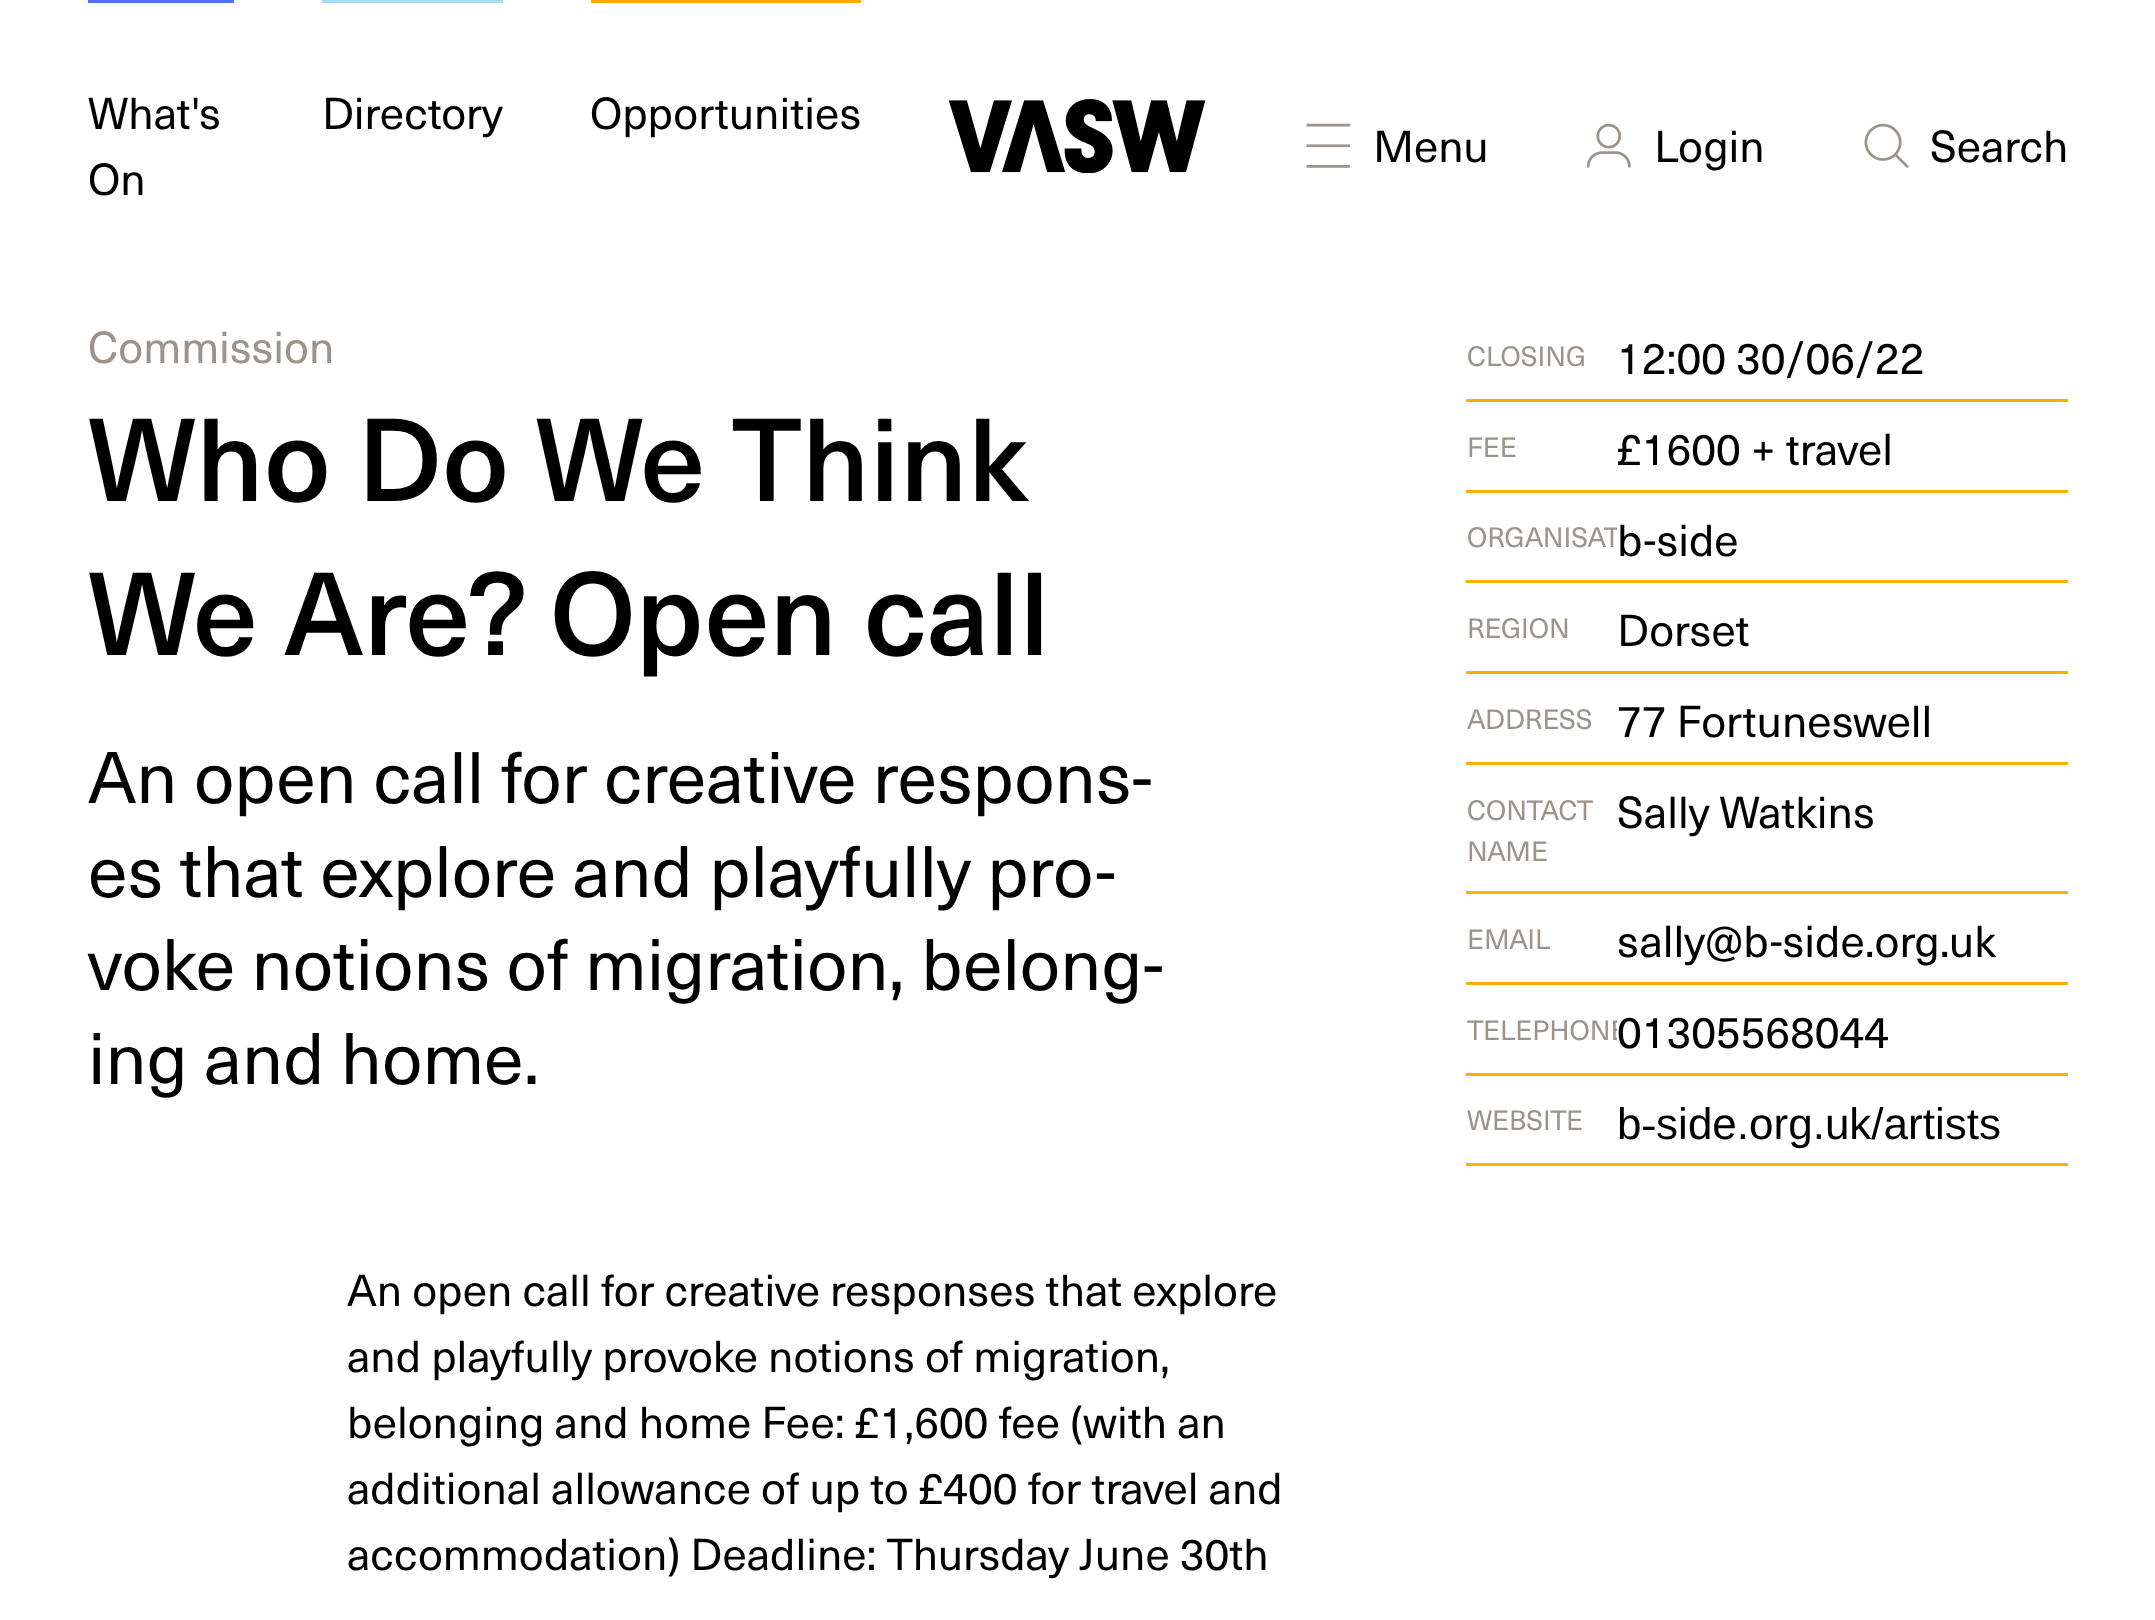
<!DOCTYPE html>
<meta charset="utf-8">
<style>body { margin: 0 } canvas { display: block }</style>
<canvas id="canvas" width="2155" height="1620"></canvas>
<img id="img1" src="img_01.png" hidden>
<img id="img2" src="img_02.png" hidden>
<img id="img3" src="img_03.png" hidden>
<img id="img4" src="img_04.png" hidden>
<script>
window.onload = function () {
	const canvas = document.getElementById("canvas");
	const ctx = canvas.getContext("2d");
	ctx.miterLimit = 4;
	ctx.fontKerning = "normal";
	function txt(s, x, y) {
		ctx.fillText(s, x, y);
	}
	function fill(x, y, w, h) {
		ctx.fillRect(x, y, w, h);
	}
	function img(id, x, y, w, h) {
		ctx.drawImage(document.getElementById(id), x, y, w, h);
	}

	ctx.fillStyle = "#FFFFFF";
	fill(0, 0, 2155, 1620);
	ctx.fillStyle = "#4F70FF";
	fill(88, 0, 146, 3);
	ctx.fillStyle = "#A0E1F1";
	fill(322, 0, 181, 3);
	ctx.fillStyle = "#FFAE00";
	fill(591, 0, 270, 3);
	img("img1", 949, 99, 257, 74);
	img("img2", 1306, 123, 45, 45);
	img("img3", 1586, 123, 45, 45);
	img("img4", 1864, 123, 45, 45);
	fill(1466, 399, 602, 3);
	fill(1466, 490, 602, 3);
	fill(1466, 580, 602, 3);
	fill(1466, 671, 602, 3);
	fill(1466, 762, 602, 3);
	fill(1466, 891, 602, 3);
	fill(1466, 982, 602, 3);
	fill(1466, 1073, 602, 3);
	fill(1466, 1163, 602, 3);
	ctx.font = "44px 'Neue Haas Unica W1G'";
	ctx.fillStyle = "#000000";
	txt("What's", 88, 129);
	txt("On", 88, 195);
	txt("Directory", 322, 129);
	txt("Opportunities", 590, 129);
	txt("Menu", 1373, 162);
	txt("Login", 1654, 162);
	txt("Search", 1930, 162);
	ctx.fillStyle = "#9C938B";
	txt("Commission", 88, 363);
	ctx.font = "500 115.5px 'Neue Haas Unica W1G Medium'";
	ctx.fillStyle = "#000000";
	txt("Who Do We Think", 88, 501);
	txt("We Are? Open call", 88, 655);
	ctx.font = "71.5px 'Neue Haas Unica W1G'";
	txt("An open call for creative respons-", 88, 803);
	txt("es that explore and playfully pro-", 88, 897);
	txt("voke notions of migration, belong-", 88, 990);
	txt("ing and home.", 88, 1084);
	ctx.font = "27.5px 'Neue Haas Unica W1G'";
	ctx.fillStyle = "#9C938B";
	txt("CLOSING", 1467, 366);
	ctx.font = "44px 'Neue Haas Unica W1G'";
	ctx.fillStyle = "#000000";
	txt("12:00 30/06/22", 1617, 374);
	ctx.font = "27.5px 'Neue Haas Unica W1G'";
	ctx.fillStyle = "#9C938B";
	txt("FEE", 1467, 457);
	ctx.font = "44px 'Neue Haas Unica W1G'";
	ctx.fillStyle = "#000000";
	txt("£1600 + travel", 1617, 465);
	ctx.save();
	ctx.beginPath();
	ctx.rect(1466, 514, 151, 44);
	ctx.clip();
	ctx.font = "27.5px 'Neue Haas Unica W1G'";
	ctx.fillStyle = "#9C938B";
	txt("ORGANISAT", 1467, 547);
	ctx.restore();
	txt("b-side", 1617, 556);
	ctx.font = "27.5px 'Neue Haas Unica W1G'";
	ctx.fillStyle = "#9C938B";
	txt("REGION", 1467, 638);
	ctx.font = "44px 'Neue Haas Unica W1G'";
	ctx.fillStyle = "#000000";
	txt("Dorset", 1617, 646);
	ctx.font = "27.5px 'Neue Haas Unica W1G'";
	ctx.fillStyle = "#9C938B";
	txt("ADDRESS", 1467, 729);
	ctx.font = "44px 'Neue Haas Unica W1G'";
	ctx.fillStyle = "#000000";
	txt("77 Fortuneswell", 1617, 737);
	ctx.font = "27.5px 'Neue Haas Unica W1G'";
	ctx.fillStyle = "#9C938B";
	txt("CONTACT", 1467, 820);
	txt("NAME", 1467, 861);
	ctx.font = "44px 'Neue Haas Unica W1G'";
	ctx.fillStyle = "#000000";
	txt("Sally Watkins", 1617, 828);
	ctx.font = "27.5px 'Neue Haas Unica W1G'";
	ctx.fillStyle = "#9C938B";
	txt("EMAIL", 1467, 949);
	ctx.font = "44px 'Neue Haas Unica W1G'";
	ctx.fillStyle = "#000000";
	txt("sally@b-side.org.uk", 1617, 957);
	ctx.save();
	ctx.beginPath();
	ctx.rect(1466, 1007, 151, 44);
	ctx.clip();
	ctx.font = "27.5px 'Neue Haas Unica W1G'";
	ctx.fillStyle = "#9C938B";
	txt("TELEPHONE", 1467, 1040);
	ctx.restore();
	txt("01305568044", 1617, 1048);
	ctx.font = "27.5px 'Neue Haas Unica W1G'";
	ctx.fillStyle = "#9C938B";
	txt("WEBSITE", 1467, 1130);
	ctx.font = "44px Liberation Sans";
	ctx.fillStyle = "#000000";
	txt("b‑side.org.uk/artists", 1617, 1139);
	ctx.font = "44px 'Neue Haas Unica W1G'";
	txt("An open call for creative responses that explore", 347, 1306);
	txt("and playfully provoke notions of migration,", 347, 1372);
	txt("belonging and home Fee: £1,600 fee (with an", 347, 1438);
	txt("additional allowance of up to £400 for travel and", 347, 1504);
	txt("accommodation) Deadline: Thursday June 30th", 347, 1570);
};
</script>
